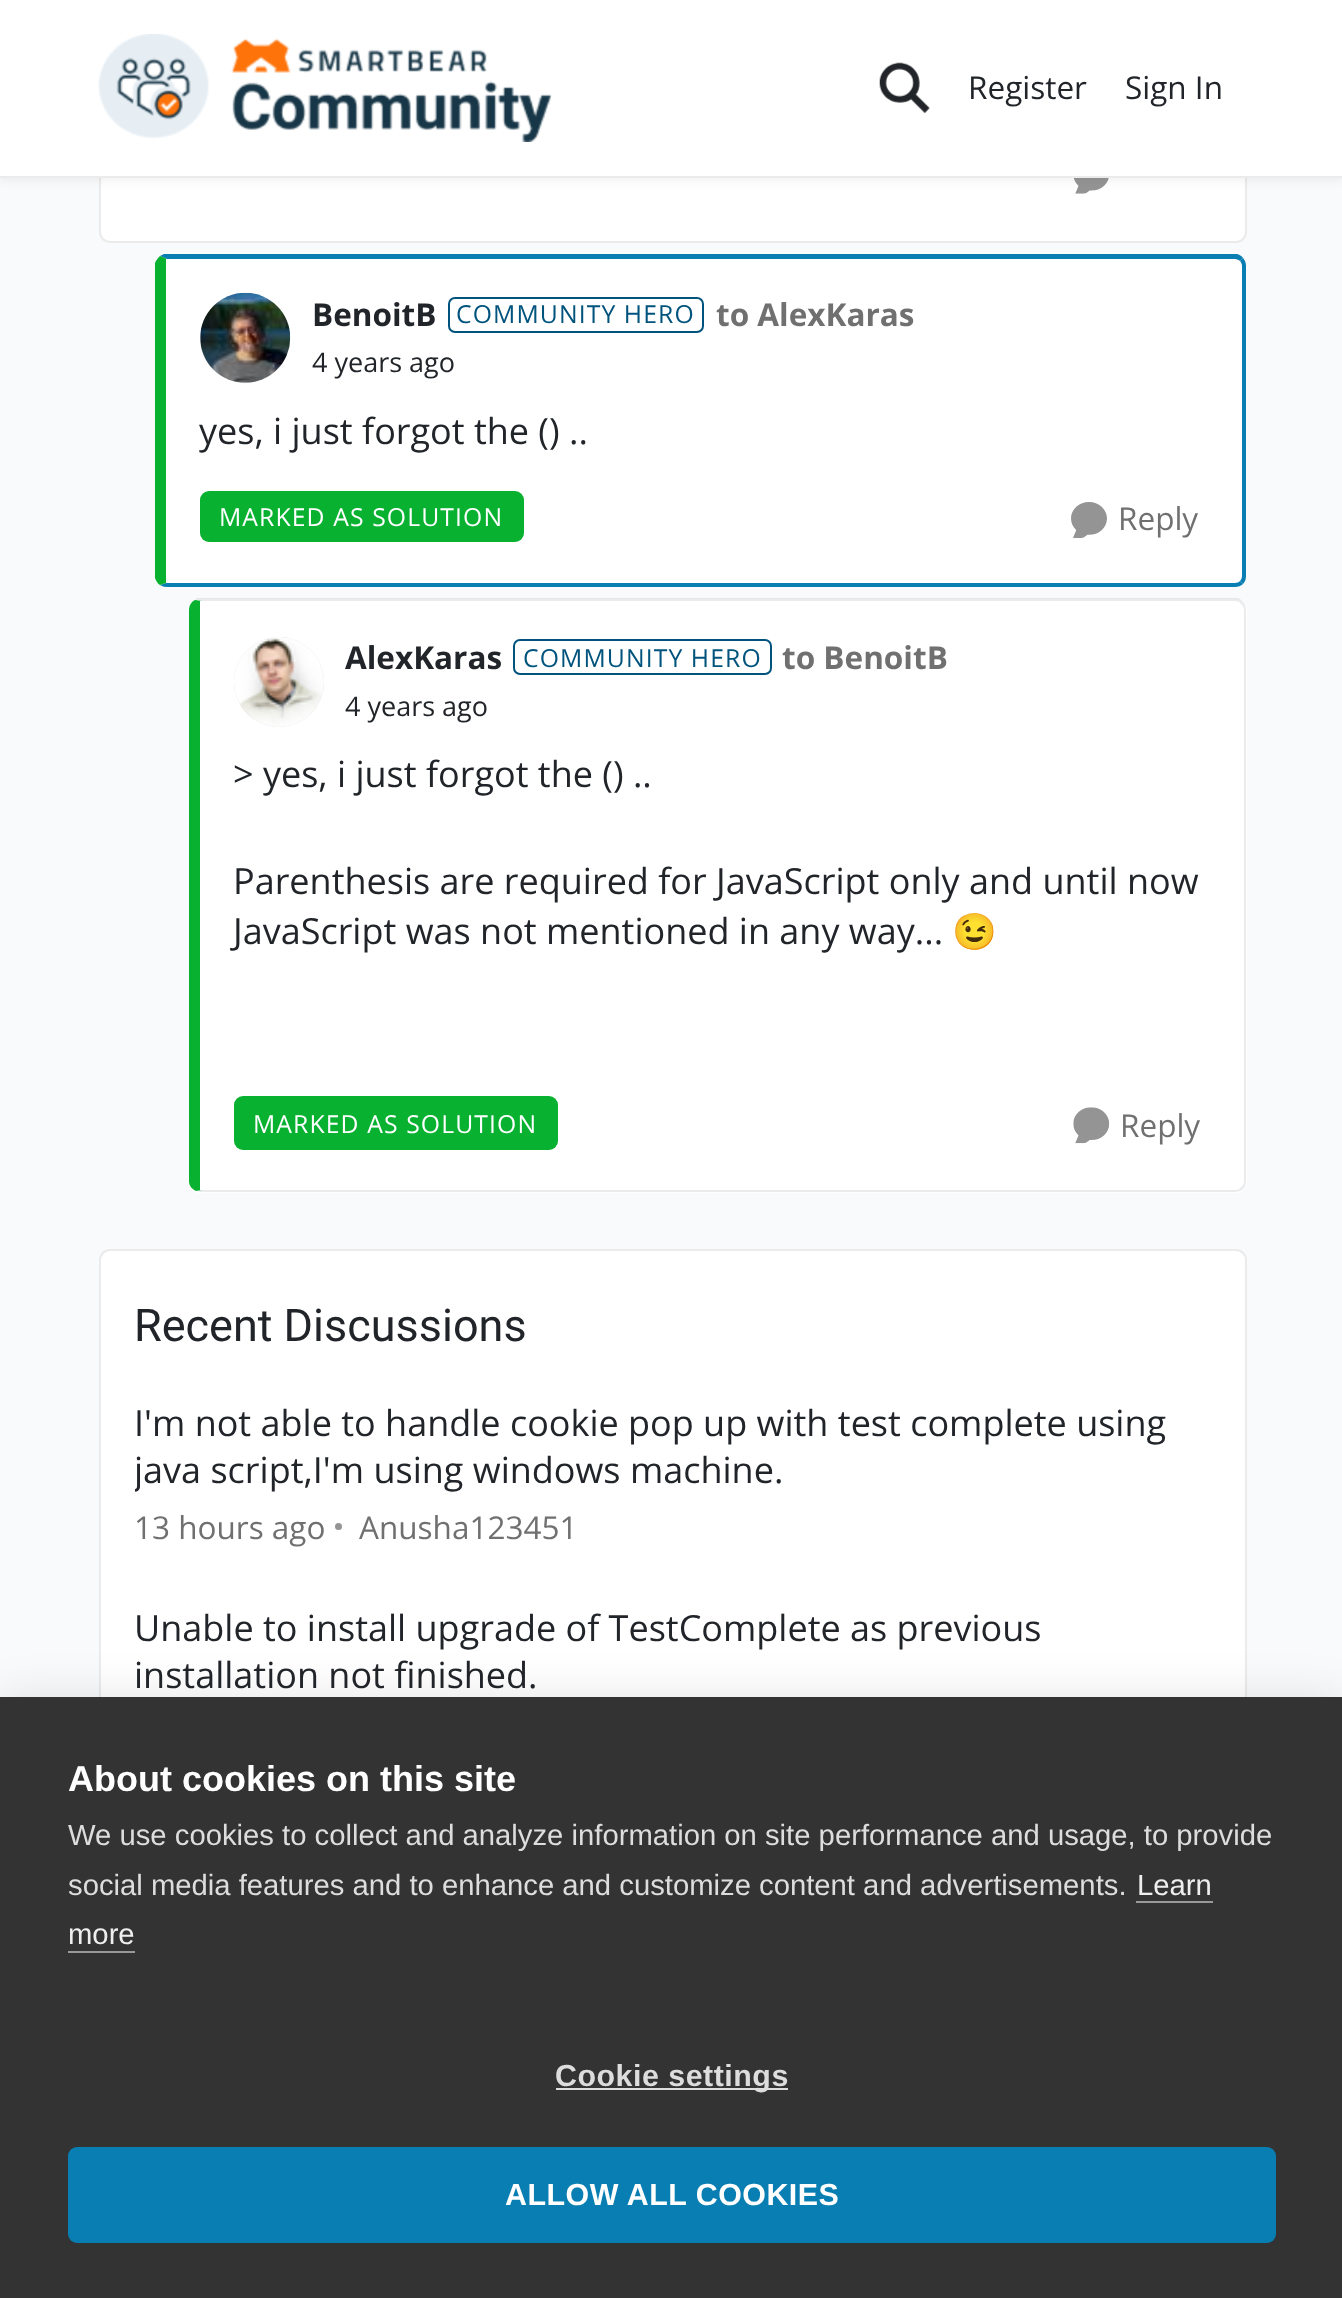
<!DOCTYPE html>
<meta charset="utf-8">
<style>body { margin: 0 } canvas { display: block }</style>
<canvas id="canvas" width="1342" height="2298"></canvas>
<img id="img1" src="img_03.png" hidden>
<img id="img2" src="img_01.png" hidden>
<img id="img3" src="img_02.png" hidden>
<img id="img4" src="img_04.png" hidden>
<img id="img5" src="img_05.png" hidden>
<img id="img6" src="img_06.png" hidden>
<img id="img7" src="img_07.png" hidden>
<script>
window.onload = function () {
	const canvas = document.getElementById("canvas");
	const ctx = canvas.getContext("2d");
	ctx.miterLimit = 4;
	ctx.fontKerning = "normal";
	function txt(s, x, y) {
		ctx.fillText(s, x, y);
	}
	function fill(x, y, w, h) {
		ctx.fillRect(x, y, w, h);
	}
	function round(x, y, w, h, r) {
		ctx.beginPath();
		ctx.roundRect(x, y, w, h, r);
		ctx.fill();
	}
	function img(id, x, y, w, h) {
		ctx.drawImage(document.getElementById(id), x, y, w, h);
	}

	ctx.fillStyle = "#F8FAFB";
	fill(0, 0, 1342, 2298);
	ctx.fillStyle = "#FFFFFF";
	ctx.beginPath();
	ctx.roundRect(100, -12, 1146, 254, 10);
	ctx.fill();
	ctx.strokeStyle = "#EBEBEB";
	ctx.lineWidth = 2;
	ctx.stroke();
	img("img1", 1073, 178, 36, 16);
	ctx.fillStyle = "rgba(51, 51, 51, 0.06)";
	ctx.filter = "blur(4.5px)";
	ctx.beginPath();
	ctx.rect(0, 5, 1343, 177);
	ctx.fill();
	ctx.filter = "none";
	ctx.fillStyle = "#FFFFFF";
	fill(0, 0, 1342, 176);
	ctx.fillStyle = "#EBEBEB";
	fill(0, 176, 1342, 2);
	img("img2", 98, 34, 454, 108);
	img("img3", 879, 62, 51, 52);
	ctx.fillStyle = "#FFFFFF";
	ctx.beginPath();
	ctx.moveTo(166, 259);
	ctx.lineTo(1235, 259);
	ctx.bezierCurveTo(1239, 259, 1242, 262, 1242, 266);
	ctx.lineTo(1242, 576);
	ctx.bezierCurveTo(1242, 580, 1239, 583, 1235, 583);
	ctx.lineTo(166, 583);
	ctx.closePath();
	ctx.fill();
	ctx.fillStyle = "#097EB2";
	ctx.beginPath();
	ctx.moveTo(160, 256);
	ctx.lineTo(164, 254);
	ctx.lineTo(1237, 254);
	ctx.bezierCurveTo(1240, 255, 1242, 256, 1243, 258);
	ctx.lineTo(1240, 261);
	ctx.bezierCurveTo(1239, 260, 1237, 259, 1235, 259);
	ctx.lineTo(167, 259);
	ctx.closePath();
	ctx.fill();
	ctx.beginPath();
	ctx.moveTo(1243, 258);
	ctx.bezierCurveTo(1245, 260, 1246, 263, 1246, 266);
	ctx.lineTo(1246, 576);
	ctx.bezierCurveTo(1246, 579, 1245, 582, 1243, 584);
	ctx.lineTo(1240, 581);
	ctx.bezierCurveTo(1241, 580, 1242, 578, 1242, 576);
	ctx.lineTo(1242, 266);
	ctx.bezierCurveTo(1242, 264, 1241, 262, 1240, 261);
	ctx.closePath();
	ctx.fill();
	ctx.beginPath();
	ctx.moveTo(1243, 584);
	ctx.bezierCurveTo(1241, 586, 1238, 587, 1235, 587);
	ctx.lineTo(166, 587);
	ctx.bezierCurveTo(164, 587, 162, 586, 160, 585);
	ctx.lineTo(166, 583);
	ctx.lineTo(1235, 583);
	ctx.bezierCurveTo(1237, 583, 1239, 582, 1240, 581);
	ctx.closePath();
	ctx.fill();
	ctx.fillStyle = "#08B130";
	ctx.beginPath();
	ctx.moveTo(166, 259);
	ctx.lineTo(166, 583);
	ctx.lineTo(160, 585);
	ctx.bezierCurveTo(158, 584, 156, 581, 155, 578);
	ctx.lineTo(155, 263);
	ctx.bezierCurveTo(156, 260, 158, 258, 160, 256);
	ctx.lineTo(167, 259);
	ctx.closePath();
	ctx.fill();
	ctx.fillStyle = "#D9D9D9";
	ctx.beginPath();
	ctx.arc(245, 338, 45, 0, Math.PI * 2);
	ctx.fill();
	img("img4", 200, 292, 91, 91);
	ctx.beginPath();
	ctx.roundRect(449, 298, 254, 34, 6);
	ctx.strokeStyle = "#00537C";
	ctx.stroke();
	ctx.fillStyle = "#08B130";
	round(200, 491, 324, 51, 9);
	img("img5", 1071, 502, 36, 36);
	ctx.fillStyle = "#FFFFFF";
	round(189, 599, 1058, 594, 11);
	ctx.fillStyle = "rgba(0, 0, 0, 0.08)";
	ctx.beginPath();
	ctx.moveTo(195, 600);
	ctx.lineTo(197, 598);
	ctx.lineTo(1238, 598);
	ctx.bezierCurveTo(1240, 599, 1242, 600, 1243, 602);
	ctx.lineTo(1241, 604);
	ctx.bezierCurveTo(1240, 602, 1238, 601, 1235, 601);
	ctx.lineTo(202, 601);
	ctx.closePath();
	ctx.fill();
	ctx.beginPath();
	ctx.moveTo(1243, 602);
	ctx.bezierCurveTo(1245, 604, 1246, 607, 1246, 610);
	ctx.lineTo(1246, 1181);
	ctx.bezierCurveTo(1246, 1184, 1245, 1187, 1243, 1189);
	ctx.lineTo(1241, 1187);
	ctx.bezierCurveTo(1243, 1186, 1244, 1184, 1244, 1181);
	ctx.lineTo(1244, 610);
	ctx.bezierCurveTo(1244, 608, 1243, 605, 1241, 604);
	ctx.closePath();
	ctx.fill();
	ctx.beginPath();
	ctx.moveTo(1243, 1189);
	ctx.bezierCurveTo(1241, 1191, 1238, 1192, 1235, 1192);
	ctx.lineTo(200, 1192);
	ctx.lineTo(196, 1191);
	ctx.lineTo(202, 1190);
	ctx.lineTo(1235, 1190);
	ctx.bezierCurveTo(1238, 1190, 1240, 1189, 1241, 1187);
	ctx.closePath();
	ctx.fill();
	ctx.fillStyle = "#08B130";
	ctx.beginPath();
	ctx.moveTo(200, 601);
	ctx.lineTo(202, 601);
	ctx.lineTo(195, 600);
	ctx.bezierCurveTo(191, 602, 189, 606, 189, 610);
	ctx.lineTo(189, 1181);
	ctx.bezierCurveTo(189, 1186, 192, 1189, 196, 1191);
	ctx.lineTo(202, 1190);
	ctx.lineTo(200, 1190);
	ctx.closePath();
	ctx.fill();
	ctx.fillStyle = "#D9D9D9";
	ctx.beginPath();
	ctx.arc(279, 682, 45, 0, Math.PI * 2);
	ctx.fill();
	img("img6", 234, 637, 90, 90);
	ctx.beginPath();
	ctx.roundRect(514, 640, 257, 34, 6);
	ctx.stroke();
	ctx.fillStyle = "#08B130";
	round(234, 1096, 324, 54, 9);
	img("img7", 1073, 1107, 37, 37);
	ctx.fillStyle = "#FFFFFF";
	ctx.beginPath();
	ctx.roundRect(100, 1250, 1146, 799, 10);
	ctx.fill();
	ctx.strokeStyle = "#EBEBEB";
	ctx.stroke();
	ctx.fillStyle = "#949494";
	ctx.beginPath();
	ctx.arc(338.5, 1526.5, 3.5, 0, Math.PI * 2);
	ctx.fill();
	ctx.fillStyle = "rgba(0, 0, 0, 0.1)";
	ctx.filter = "blur(22.5px)";
	ctx.beginPath();
	ctx.rect(0, 1697, 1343, 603);
	ctx.fill();
	ctx.filter = "none";
	ctx.fillStyle = "#333333";
	fill(0, 1697, 1342, 601);
	ctx.fillStyle = "#999999";
	fill(1136, 1901, 77, 2);
	fill(68, 1951, 67, 2);
	ctx.fillStyle = "#DDDDDD";
	fill(556, 2088, 232, 2);
	ctx.fillStyle = "#097EB2";
	round(68, 2147, 1208, 96, 9);
	ctx.font = "31.5px Open Sans";
	ctx.fillStyle = "#212429";
	txt("Register", 968, 99);
	txt("Sign In", 1125, 99);
	ctx.font = "bold 31.5px Open Sans";
	txt("BenoitB", 312, 326);
	ctx.letterSpacing = "1.1px";
	ctx.font = "24.75px Open Sans";
	ctx.fillStyle = "#00537C";
	txt("COMMUNITY HERO", 456, 323);
	ctx.letterSpacing = "0px";
	ctx.font = "bold 31.5px Open Sans";
	ctx.fillStyle = "#707070";
	txt("to AlexKaras", 716, 326);
	ctx.font = "27px Open Sans";
	ctx.fillStyle = "#212429";
	txt("4 years ago", 312, 372);
	ctx.font = "36px Open Sans";
	txt("yes, i just forgot the () ..", 199, 444);
	ctx.letterSpacing = "1.1px";
	ctx.font = "24.75px Open Sans";
	ctx.fillStyle = "#FFFFFF";
	txt("MARKED AS SOLUTION", 219, 526);
	ctx.letterSpacing = "0px";
	ctx.font = "31.5px Open Sans";
	ctx.fillStyle = "#707070";
	txt("Reply", 1118, 530);
	ctx.font = "bold 31.5px Open Sans";
	ctx.fillStyle = "#212429";
	txt("AlexKaras", 345, 669);
	ctx.letterSpacing = "1.1px";
	ctx.font = "24.75px Open Sans";
	ctx.fillStyle = "#00537C";
	txt("COMMUNITY HERO", 523, 667);
	ctx.letterSpacing = "0px";
	ctx.font = "bold 31.5px Open Sans";
	ctx.fillStyle = "#707070";
	txt("to BenoitB", 782, 669);
	ctx.font = "27px Open Sans";
	ctx.fillStyle = "#212429";
	txt("4 years ago", 345, 716);
	ctx.font = "36px Open Sans";
	txt("> yes, i just forgot the () ..", 233, 787);
	txt("Parenthesis are required for JavaScript only and until now", 233, 894);
	txt("JavaScript was not mentioned in any way...", 233, 944);
	ctx.font = "36px Noto Color Emoji";
	txt("😉", 952, 944);
	ctx.letterSpacing = "1.1px";
	ctx.font = "24.75px Open Sans";
	ctx.fillStyle = "#FFFFFF";
	txt("MARKED AS SOLUTION", 253, 1133);
	ctx.letterSpacing = "0px";
	ctx.font = "31.5px Open Sans";
	ctx.fillStyle = "#707070";
	txt("Reply", 1120, 1137);
	ctx.font = "45px Roboto";
	ctx.fillStyle = "#212429";
	txt("Recent Discussions", 134, 1341);
	ctx.font = "36px Open Sans";
	txt("I'm not able to handle cookie pop up with test complete using", 134, 1436);
	ctx.save();
	ctx.beginPath();
	ctx.rect(135, 1400, 1076, 94);
	ctx.clip();
	txt("java script,I'm using windows machine.", 134, 1483);
	ctx.restore();
	ctx.font = "31.5px Open Sans";
	ctx.fillStyle = "#707070";
	txt("13 hours ago", 134, 1539);
	txt("Anusha123451", 359, 1539);
	ctx.font = "36px Open Sans";
	ctx.fillStyle = "#212429";
	txt("Unable to install upgrade of TestComplete as previous", 134, 1641);
	txt("installation not finished.", 134, 1688);
	ctx.font = "bold 36px Liberation Sans";
	ctx.fillStyle = "#FFFFFF";
	txt("About cookies on this site", 68, 1791);
	ctx.font = "29.25px Liberation Sans";
	ctx.fillStyle = "#DDDDDD";
	txt("We use cookies to collect and analyze information on site performance and usage, to provide", 68, 1845);
	txt("social media features and to enhance and customize content and advertisements.", 68, 1895);
	ctx.fillStyle = "#EEEEEE";
	txt("Learn", 1137, 1895);
	txt("more", 68, 1944);
	ctx.letterSpacing = "0.5px";
	ctx.font = "bold 30.4px Liberation Sans";
	ctx.fillStyle = "#DDDDDD";
	txt("Cookie settings", 555, 2086);
	ctx.fillStyle = "#FFFFFF";
	txt("ALLOW ALL COOKIES", 505, 2205);
};
</script>
